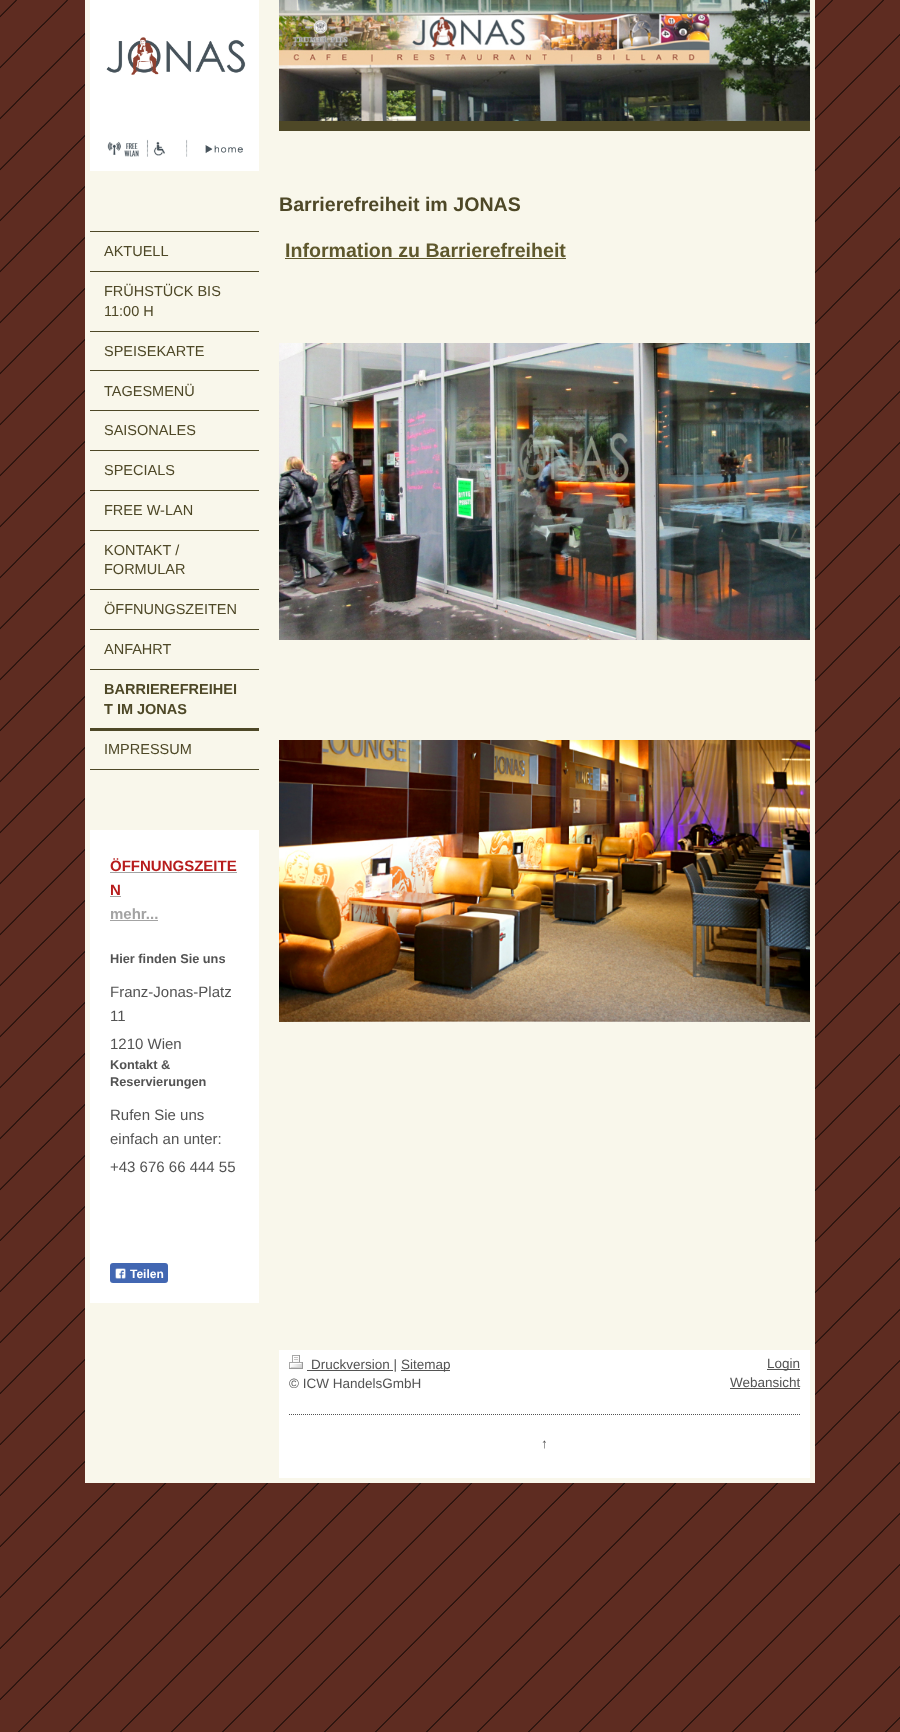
<!DOCTYPE html>
<meta charset="utf-8">
<style>body { margin: 0 } canvas { display: block }</style>
<canvas id="canvas" width="900" height="1732"></canvas>
<img id="img1" src="img_01.png" hidden>
<img id="img2" src="img_02.png" hidden>
<img id="img3" src="img_03.png" hidden>
<img id="img4" src="img_04.png" hidden>
<img id="img5" src="img_05.png" hidden>
<img id="img6" src="img_06.png" hidden>
<img id="img7" src="img_07.png" hidden>
<script>
window.onload = function () {
	const canvas = document.getElementById("canvas");
	const ctx = canvas.getContext("2d");
	ctx.miterLimit = 4;
	ctx.fontKerning = "normal";
	function txt(s, x, y) {
		ctx.fillText(s, x, y);
	}
	function fill(x, y, w, h) {
		ctx.fillRect(x, y, w, h);
	}
	function round(x, y, w, h, r) {
		ctx.beginPath();
		ctx.roundRect(x, y, w, h, r);
		ctx.fill();
	}
	function img(id, x, y, w, h) {
		ctx.drawImage(document.getElementById(id), x, y, w, h);
	}

	ctx.fillStyle = "#5E2C21";
	fill(0, 0, 900, 1732);
	img("img1", 0, 0, 900, 1732);
	ctx.fillStyle = "#F9F7EB";
	fill(85, 0, 730, 1483);
	ctx.fillStyle = "#4E4827";
	fill(279, 121, 531, 10);
	img("img2", 279, 0, 531, 121);
	ctx.fillStyle = "#5F582D";
	fill(285, 258, 281, 1);
	img("img3", 279, 343, 531, 297);
	img("img4", 279, 740, 531, 282);
	ctx.fillStyle = "#FFFFFF";
	fill(90, 0, 169, 171);
	img("img5", 106, 37, 140, 120);
	ctx.fillStyle = "#4E4827";
	fill(90, 231, 169, 1);
	fill(90, 271, 169, 1);
	fill(90, 331, 169, 1);
	fill(90, 370, 169, 1);
	fill(90, 410, 169, 1);
	fill(90, 450, 169, 1);
	fill(90, 490, 169, 1);
	fill(90, 530, 169, 1);
	fill(90, 589, 169, 1);
	fill(90, 629, 169, 1);
	fill(90, 669, 169, 1);
	fill(90, 728, 169, 3);
	fill(90, 769, 169, 1);
	ctx.fillStyle = "#FFFFFF";
	fill(90, 830, 169, 473);
	ctx.fillStyle = "#A3A3A3";
	fill(110, 872, 127, 1);
	fill(110, 896, 11, 1);
	fill(110, 920, 48, 1);
	ctx.fillStyle = "#4267B2";
	round(110, 1263, 58, 20, 3);
	img("img6", 115, 1268, 11, 11);
	ctx.fillStyle = "#FFFFFF";
	fill(279, 1350, 531, 128);
	img("img7", 289, 1355, 14, 14);
	ctx.fillStyle = "#535353";
	fill(307, 1370, 86, 1);
	fill(401, 1370, 49, 1);
	fill(767, 1369, 33, 1);
	fill(730, 1388, 70, 1);
	ctx.beginPath();
	ctx.moveTo(289, 1414.5);
	ctx.lineTo(800, 1414.5);
	ctx.strokeStyle = "#535353";
	ctx.setLineDash([1, 1]);
	ctx.stroke();
	ctx.font = "bold 19.6px Liberation Sans";
	ctx.fillStyle = "#4E4827";
	txt("Barrierefreiheit im JONAS", 279, 211);
	ctx.fillStyle = "#5F582D";
	txt("Information zu Barrierefreiheit", 285, 257);
	ctx.font = "14.5px Liberation Sans";
	ctx.fillStyle = "#4E4827";
	txt("AKTUELL", 104, 256);
	txt("FRÜHSTÜCK BIS", 104, 296);
	txt("11:00 H", 104, 316);
	txt("SPEISEKARTE", 104, 356);
	txt("TAGESMENÜ", 104, 396);
	txt("SAISONALES", 104, 435);
	txt("SPECIALS", 104, 475);
	txt("FREE W-LAN", 104, 515);
	txt("KONTAKT /", 104, 555);
	txt("FORMULAR", 104, 574);
	txt("ÖFFNUNGSZEITEN", 104, 614);
	txt("ANFAHRT", 104, 654);
	ctx.font = "bold 14.5px Liberation Sans";
	txt("BARRIEREFREIHEI", 104, 694);
	txt("T IM JONAS", 104, 714);
	ctx.font = "14.5px Liberation Sans";
	txt("IMPRESSUM", 104, 754);
	ctx.font = "bold 15px Liberation Sans";
	ctx.fillStyle = "#B71C1C";
	txt("ÖFFNUNGSZEITE", 110, 871);
	txt("N", 110, 895);
	ctx.fillStyle = "#A3A3A3";
	txt("mehr...", 110, 919);
	ctx.font = "bold 12.75px Liberation Sans";
	ctx.fillStyle = "#535353";
	txt("Hier finden Sie uns", 110, 963);
	ctx.font = "15px Liberation Sans";
	txt("Franz-Jonas-Platz", 110, 997);
	txt("11", 110, 1021);
	txt("1210 Wien", 110, 1049);
	ctx.font = "bold 12.75px Liberation Sans";
	txt("Kontakt &", 110, 1069);
	txt("Reservierungen", 110, 1086);
	ctx.font = "15px Liberation Sans";
	txt("Rufen Sie uns", 110, 1120);
	txt("einfach an unter:", 110, 1144);
	txt("+43 676 66 444 55", 110, 1172);
	ctx.font = "bold 12px Liberation Sans";
	ctx.fillStyle = "#FFFFFF";
	txt("Teilen", 130, 1278);
	ctx.font = "13.5px Liberation Sans";
	ctx.fillStyle = "#535353";
	txt("Druckversion |", 311, 1369);
	txt("Sitemap", 401, 1369);
	txt("© ICW HandelsGmbH", 289, 1388);
	txt("Login", 767, 1368);
	txt("Webansicht", 730, 1387);
	txt("↑", 541, 1448);
};
</script>
